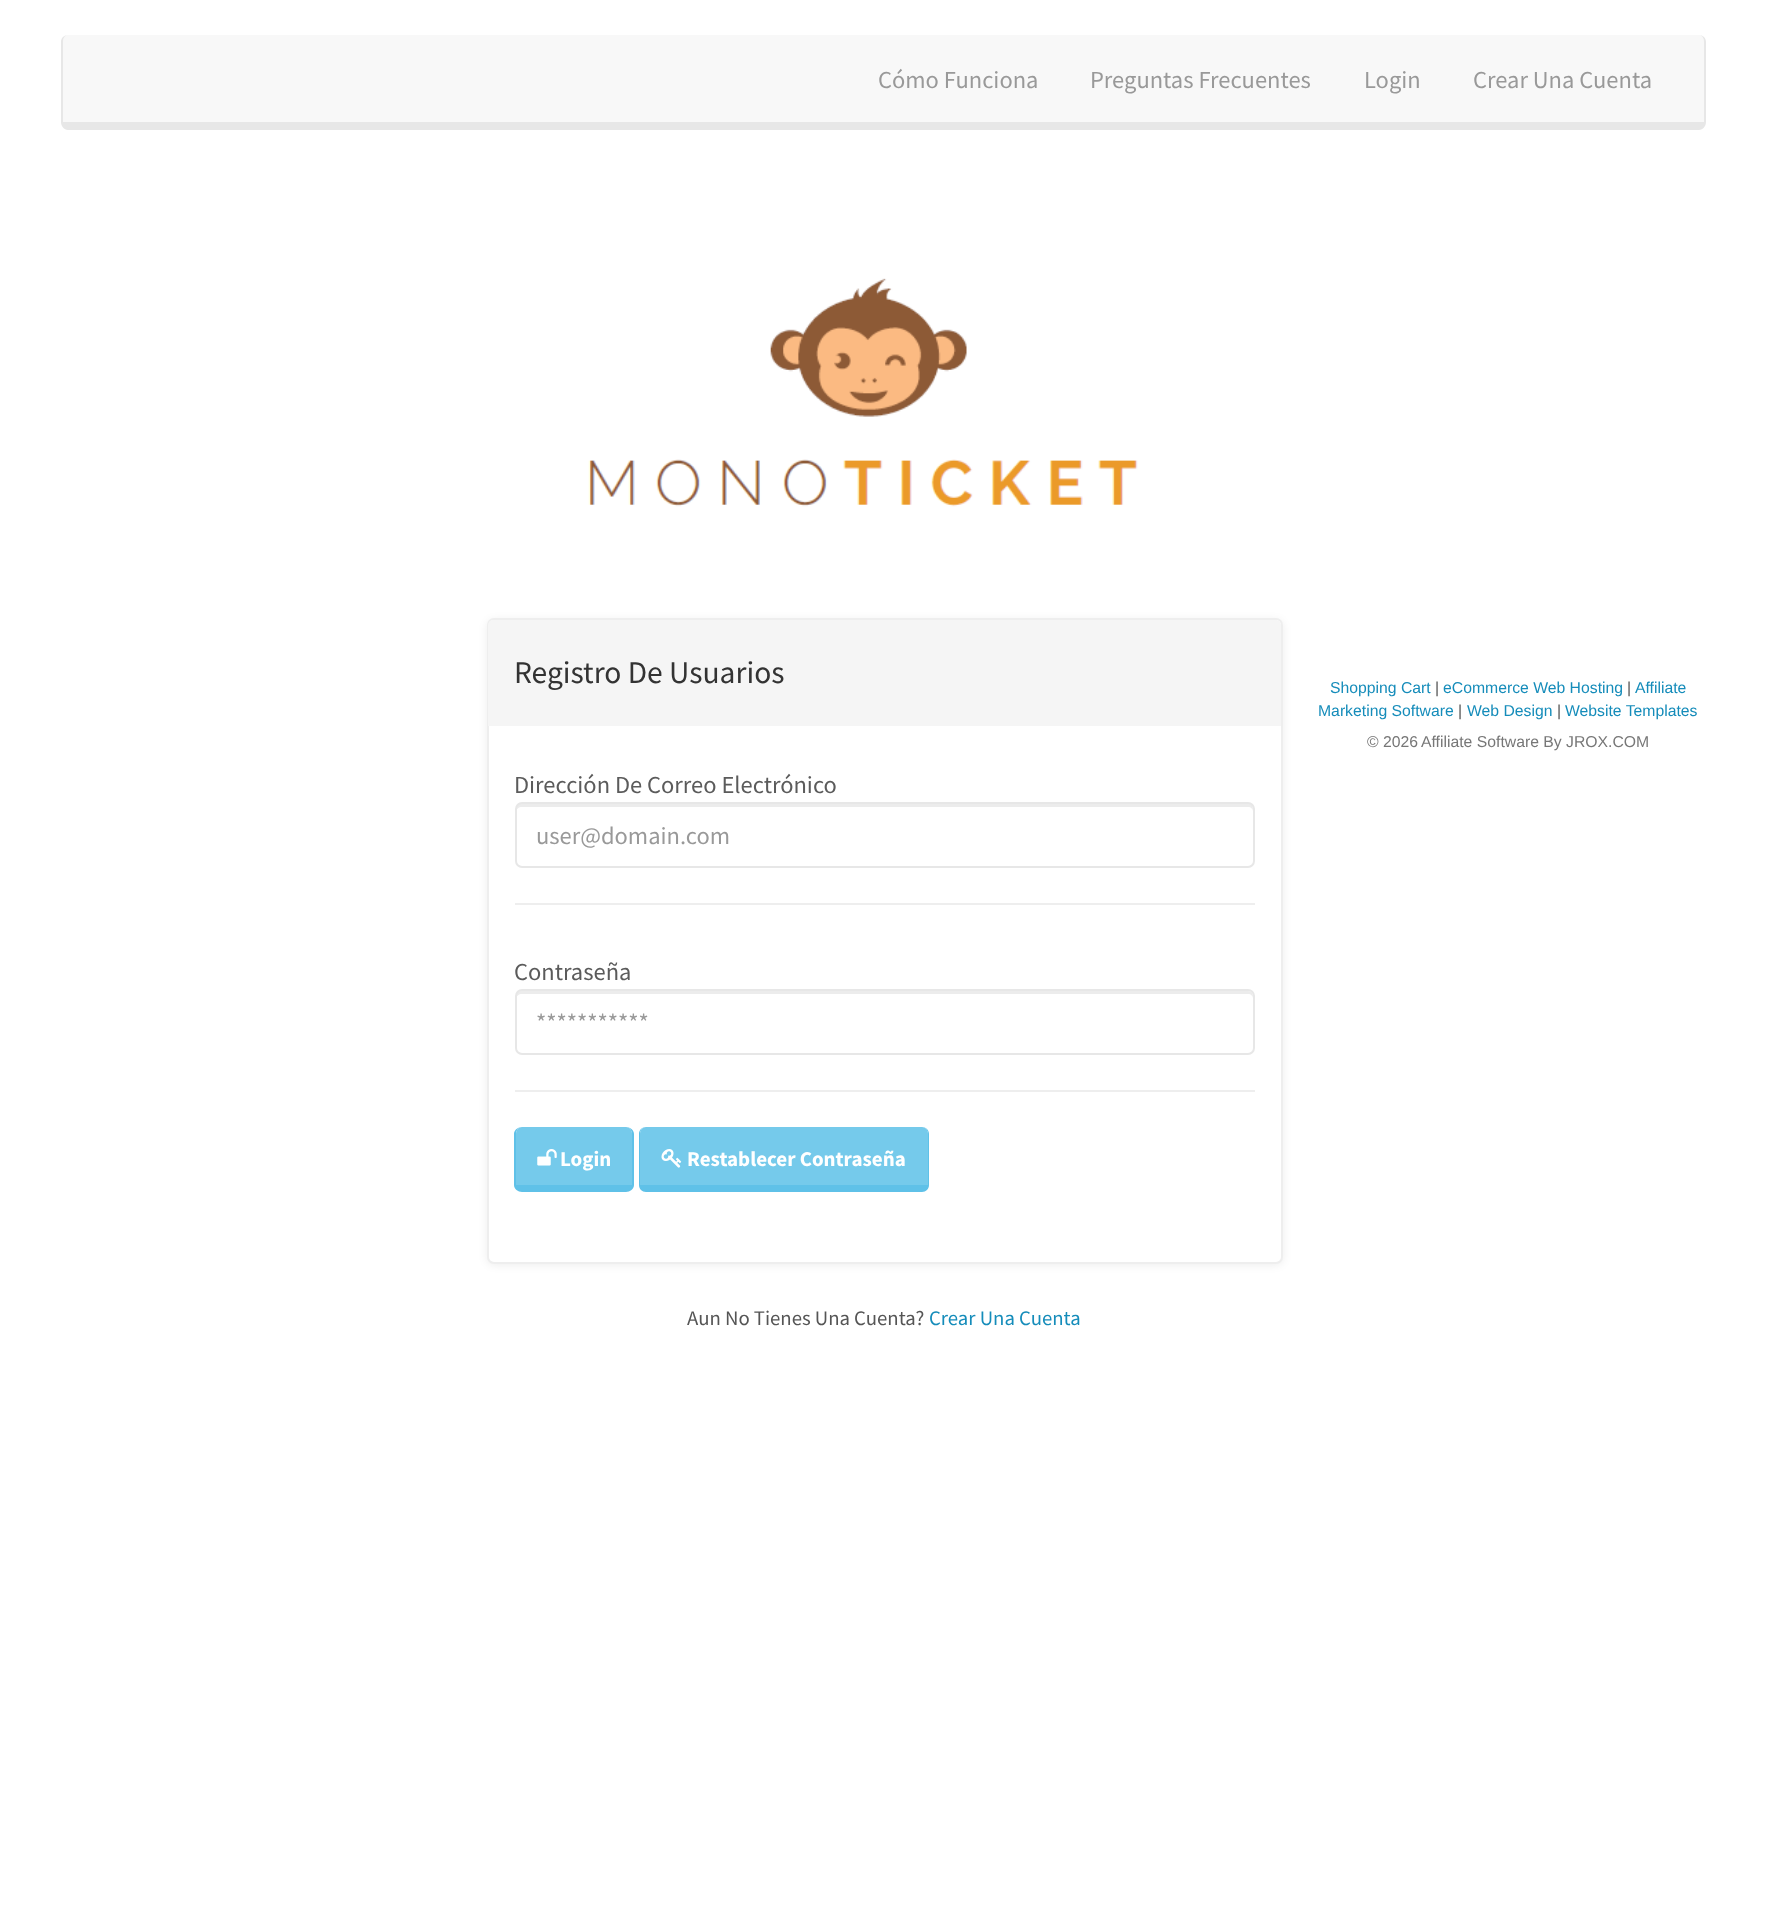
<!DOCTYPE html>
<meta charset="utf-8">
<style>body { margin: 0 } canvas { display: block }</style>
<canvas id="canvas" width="1766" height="1929"></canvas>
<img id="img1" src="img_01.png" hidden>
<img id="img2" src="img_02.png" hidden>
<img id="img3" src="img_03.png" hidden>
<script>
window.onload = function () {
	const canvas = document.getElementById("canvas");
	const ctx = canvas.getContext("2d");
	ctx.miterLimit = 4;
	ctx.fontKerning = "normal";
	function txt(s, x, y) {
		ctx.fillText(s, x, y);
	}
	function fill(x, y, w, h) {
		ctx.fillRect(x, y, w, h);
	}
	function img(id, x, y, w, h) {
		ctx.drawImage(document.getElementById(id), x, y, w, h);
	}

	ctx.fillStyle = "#FFFFFF";
	fill(0, 0, 1766, 1929);
	ctx.fillStyle = "#F8F8F8";
	ctx.beginPath();
	ctx.moveTo(68, 35);
	ctx.lineTo(1699, 35);
	ctx.bezierCurveTo(1702, 35, 1704, 38, 1704, 42);
	ctx.lineTo(1704, 122);
	ctx.lineTo(63, 122);
	ctx.lineTo(63, 42);
	ctx.bezierCurveTo(63, 38, 65, 35, 68, 35);
	ctx.closePath();
	ctx.fill();
	ctx.fillStyle = "#E7E7E7";
	ctx.beginPath();
	ctx.moveTo(68, 35);
	ctx.lineTo(1699, 35);
	ctx.bezierCurveTo(1703, 35, 1706, 38, 1706, 42);
	ctx.lineTo(1706, 122);
	ctx.bezierCurveTo(1706, 126, 1703, 130, 1699, 130);
	ctx.lineTo(68, 130);
	ctx.bezierCurveTo(64, 130, 61, 126, 61, 122);
	ctx.lineTo(61, 42);
	ctx.bezierCurveTo(61, 38, 64, 35, 68, 35);
	ctx.closePath();
	ctx.moveTo(68, 35);
	ctx.lineTo(1699, 35);
	ctx.bezierCurveTo(1702, 35, 1704, 38, 1704, 42);
	ctx.lineTo(1704, 122);
	ctx.lineTo(63, 122);
	ctx.lineTo(63, 42);
	ctx.bezierCurveTo(63, 38, 65, 35, 68, 35);
	ctx.closePath();
	ctx.fill("evenodd");
	img("img1", 588, 278, 550, 229);
	ctx.fillStyle = "rgba(0, 0, 0, 0.07)";
	ctx.filter = "blur(4.5px)";
	ctx.beginPath();
	ctx.roundRect(487, 620, 796, 645, 7);
	ctx.fill();
	ctx.filter = "none";
	ctx.fillStyle = "#FFFFFF";
	ctx.beginPath();
	ctx.roundRect(488, 619, 794, 644, 6);
	ctx.fill();
	ctx.strokeStyle = "#EEEEEE";
	ctx.lineWidth = 2;
	ctx.stroke();
	ctx.fillStyle = "#F5F5F5";
	ctx.beginPath();
	ctx.roundRect(488, 620, 793, 106, [5, 5, 0, 0]);
	ctx.fill();
	ctx.fillStyle = "#ECECEC";
	ctx.beginPath();
	ctx.moveTo(522, 807);
	ctx.lineTo(1248, 807);
	ctx.bezierCurveTo(1251, 807, 1253, 809, 1253, 812);
	ctx.bezierCurveTo(1253, 808, 1253, 803, 1248, 803);
	ctx.lineTo(521, 803);
	ctx.bezierCurveTo(516, 803, 516, 808, 516, 812);
	ctx.bezierCurveTo(516, 809, 519, 807, 522, 807);
	ctx.closePath();
	ctx.fill();
	ctx.beginPath();
	ctx.roundRect(516, 803, 738, 64, 6);
	ctx.strokeStyle = "#E7E7E7";
	ctx.stroke();
	ctx.fillStyle = "#EEEEEE";
	fill(515, 903, 740, 2);
	ctx.fillStyle = "#ECECEC";
	ctx.beginPath();
	ctx.moveTo(522, 994);
	ctx.lineTo(1248, 994);
	ctx.bezierCurveTo(1251, 994, 1253, 996, 1253, 999);
	ctx.bezierCurveTo(1253, 995, 1253, 991, 1248, 991);
	ctx.lineTo(521, 991);
	ctx.bezierCurveTo(516, 991, 516, 995, 516, 999);
	ctx.bezierCurveTo(516, 996, 519, 994, 522, 994);
	ctx.closePath();
	ctx.fill();
	ctx.beginPath();
	ctx.roundRect(516, 990, 738, 64, 6);
	ctx.stroke();
	ctx.fillStyle = "#EEEEEE";
	fill(515, 1090, 740, 2);
	ctx.fillStyle = "#75CAEB";
	ctx.beginPath();
	ctx.moveTo(522, 1127);
	ctx.lineTo(626, 1127);
	ctx.bezierCurveTo(629, 1127, 632, 1130, 632, 1134);
	ctx.lineTo(632, 1185);
	ctx.lineTo(516, 1185);
	ctx.lineTo(516, 1134);
	ctx.bezierCurveTo(516, 1130, 519, 1127, 522, 1127);
	ctx.closePath();
	ctx.fill();
	ctx.fillStyle = "#5FC1E8";
	ctx.beginPath();
	ctx.moveTo(522, 1127);
	ctx.lineTo(626, 1127);
	ctx.bezierCurveTo(630, 1127, 634, 1130, 634, 1134);
	ctx.lineTo(634, 1185);
	ctx.bezierCurveTo(634, 1189, 630, 1192, 626, 1192);
	ctx.lineTo(522, 1192);
	ctx.bezierCurveTo(518, 1192, 514, 1189, 514, 1185);
	ctx.lineTo(514, 1134);
	ctx.bezierCurveTo(514, 1130, 518, 1127, 522, 1127);
	ctx.closePath();
	ctx.moveTo(522, 1127);
	ctx.lineTo(626, 1127);
	ctx.bezierCurveTo(629, 1127, 632, 1130, 632, 1134);
	ctx.lineTo(632, 1185);
	ctx.lineTo(516, 1185);
	ctx.lineTo(516, 1134);
	ctx.bezierCurveTo(516, 1130, 519, 1127, 522, 1127);
	ctx.closePath();
	ctx.fill("evenodd");
	img("img2", 537, 1149, 20, 17);
	ctx.fillStyle = "#75CAEB";
	ctx.beginPath();
	ctx.moveTo(646, 1127);
	ctx.lineTo(922, 1127);
	ctx.bezierCurveTo(925, 1127, 928, 1130, 928, 1134);
	ctx.lineTo(928, 1185);
	ctx.lineTo(640, 1185);
	ctx.lineTo(640, 1134);
	ctx.bezierCurveTo(640, 1130, 643, 1127, 646, 1127);
	ctx.closePath();
	ctx.fill();
	ctx.fillStyle = "#5FC1E8";
	ctx.beginPath();
	ctx.moveTo(646, 1127);
	ctx.lineTo(922, 1127);
	ctx.bezierCurveTo(926, 1127, 929, 1130, 929, 1134);
	ctx.lineTo(929, 1185);
	ctx.bezierCurveTo(929, 1189, 926, 1192, 922, 1192);
	ctx.lineTo(646, 1192);
	ctx.bezierCurveTo(642, 1192, 639, 1189, 639, 1185);
	ctx.lineTo(639, 1134);
	ctx.bezierCurveTo(639, 1130, 642, 1127, 646, 1127);
	ctx.closePath();
	ctx.moveTo(646, 1127);
	ctx.lineTo(922, 1127);
	ctx.bezierCurveTo(925, 1127, 928, 1130, 928, 1134);
	ctx.lineTo(928, 1185);
	ctx.lineTo(640, 1185);
	ctx.lineTo(640, 1134);
	ctx.bezierCurveTo(640, 1130, 643, 1127, 646, 1127);
	ctx.closePath();
	ctx.fill("evenodd");
	img("img3", 661, 1149, 21, 19);
	ctx.font = "24.5px Source Sans Pro";
	ctx.fillStyle = "#999999";
	txt("Cómo Funciona", 878, 88);
	txt("Preguntas Frecuentes", 1090, 88);
	txt("Login", 1364, 88);
	txt("Crear Una Cuenta", 1473, 88);
	ctx.font = "31.5px Source Sans Pro";
	ctx.fillStyle = "#333333";
	txt("Registro De Usuarios", 514, 683);
	ctx.font = "24.5px Source Sans Pro";
	ctx.fillStyle = "#5B5B5B";
	txt("Dirección De Correo Electrónico", 514, 793);
	ctx.fillStyle = "#999999";
	txt("user@domain.com", 536, 844);
	ctx.fillStyle = "#5B5B5B";
	txt("Contraseña", 514, 980);
	ctx.fillStyle = "#999999";
	txt("***********", 536, 1031);
	ctx.font = "bold 21px Source Sans Pro";
	ctx.fillStyle = "#FFFFFF";
	txt("Login", 560, 1166);
	txt("Restablecer Contraseña", 687, 1166);
	ctx.font = "20.75px Source Sans Pro";
	ctx.fillStyle = "#555555";
	txt("Aun No Tienes Una Cuenta?", 687, 1325);
	ctx.fillStyle = "#158CBA";
	txt("Crear Una Cuenta", 929, 1325);
	ctx.font = "15.75px Liberation Sans";
	txt("Shopping Cart", 1330, 693);
	ctx.fillStyle = "#555555";
	txt("|", 1435, 693);
	ctx.fillStyle = "#158CBA";
	txt("eCommerce Web Hosting", 1443, 693);
	ctx.fillStyle = "#555555";
	txt("|", 1627, 693);
	ctx.fillStyle = "#158CBA";
	txt("Affiliate", 1635, 693);
	txt("Marketing Software", 1318, 716);
	ctx.fillStyle = "#555555";
	txt("|", 1458, 716);
	ctx.fillStyle = "#158CBA";
	txt("Web Design", 1467, 716);
	ctx.fillStyle = "#555555";
	txt("|", 1557, 716);
	ctx.fillStyle = "#158CBA";
	txt("Website Templates", 1565, 716);
	ctx.fillStyle = "#777777";
	txt("© 2026", 1367, 747);
	txt("Affiliate Software By JROX.COM", 1421, 747);
};
</script>
